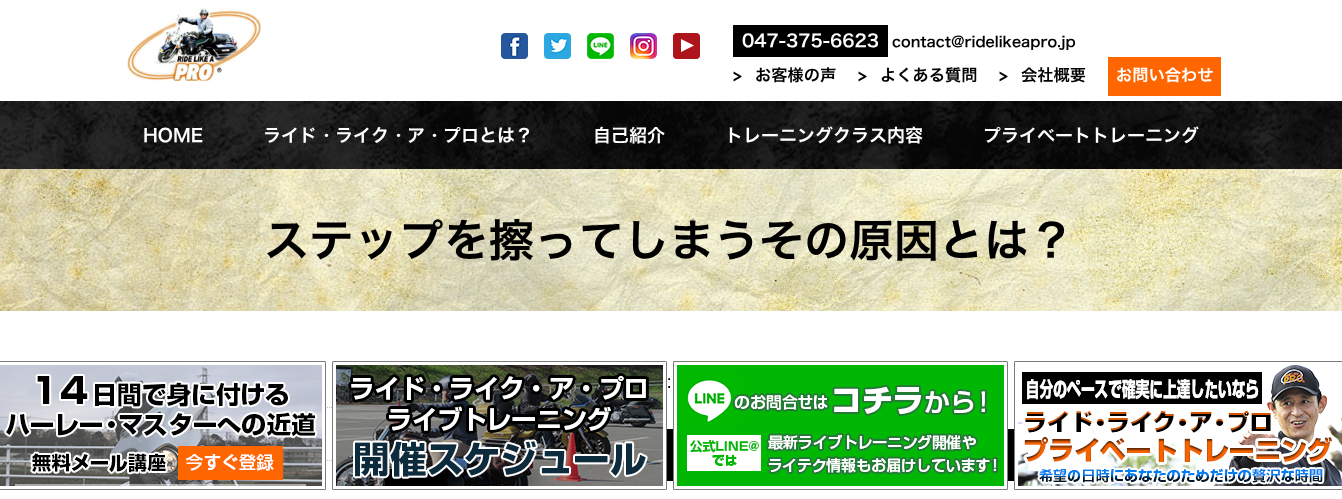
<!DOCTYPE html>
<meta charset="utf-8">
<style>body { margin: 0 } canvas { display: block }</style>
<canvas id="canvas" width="1342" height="499"></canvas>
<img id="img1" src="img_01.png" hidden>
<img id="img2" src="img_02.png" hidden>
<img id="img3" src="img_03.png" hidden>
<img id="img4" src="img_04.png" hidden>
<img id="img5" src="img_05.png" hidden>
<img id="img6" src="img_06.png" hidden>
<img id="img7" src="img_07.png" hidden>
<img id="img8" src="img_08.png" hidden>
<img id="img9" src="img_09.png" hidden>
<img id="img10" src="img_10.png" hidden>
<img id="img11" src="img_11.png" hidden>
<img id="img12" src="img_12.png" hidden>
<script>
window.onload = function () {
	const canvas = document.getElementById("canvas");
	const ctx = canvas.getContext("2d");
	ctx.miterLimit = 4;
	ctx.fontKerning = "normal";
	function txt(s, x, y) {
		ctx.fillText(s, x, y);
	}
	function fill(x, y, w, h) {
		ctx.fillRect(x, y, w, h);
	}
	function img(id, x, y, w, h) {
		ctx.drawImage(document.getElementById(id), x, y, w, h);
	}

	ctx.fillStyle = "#FFFFFF";
	fill(0, 0, 1342, 499);
	img("img1", 127, 8, 134, 74);
	img("img2", 501, 33, 27, 26);
	img("img3", 544, 33, 27, 26);
	img("img4", 587, 33, 27, 26);
	img("img5", 630, 33, 27, 26);
	img("img6", 673, 33, 27, 26);
	ctx.fillStyle = "#000000";
	fill(733, 25, 155, 32);
	ctx.fillStyle = "#FF6600";
	fill(1108, 57, 113, 39);
	img("img7", 0, 101, 1342, 68);
	img("img8", 0, 169, 1342, 142);
	ctx.beginPath();
	ctx.moveTo(201, 407.5);
	ctx.lineTo(473, 407.5);
	ctx.strokeStyle = "#BCBCBC";
	ctx.setLineDash([1, 1]);
	ctx.stroke();
	ctx.beginPath();
	ctx.moveTo(201, 460.5);
	ctx.lineTo(473, 460.5);
	ctx.stroke();
	ctx.fillStyle = "#FFFFFF";
	fill(325, 407, 1, 54);
	img("img9", 0, 361, 326, 129);
	fill(333, 407, 139, 54);
	img("img10", 332, 361, 335, 129);
	ctx.fillStyle = "#000000";
	fill(667, 429, 347, 52);
	ctx.fillStyle = "#FFFFFF";
	fill(673, 429, 335, 52);
	img("img11", 673, 361, 335, 129);
	img("img12", 1014, 361, 328, 129);
	ctx.font = "600 17.25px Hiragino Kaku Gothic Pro";
	txt("047-375-6623", 742, 47);
	ctx.font = "600 14.4px Hiragino Kaku Gothic Pro";
	ctx.fillStyle = "#000000";
	txt("contact@ridelikeapro.jp", 892, 47);
	ctx.font = "600 16.25px Hiragino Kaku Gothic Pro";
	txt(">", 733, 81);
	txt("お客様の声", 755, 81);
	txt(">", 858, 81);
	txt("よくある質問", 880, 81);
	txt(">", 999, 81);
	txt("会社概要", 1021, 81);
	ctx.fillStyle = "#FFFFFF";
	txt("お問い合わせ", 1116, 81);
	ctx.font = "600 18px Hiragino Kaku Gothic Pro";
	txt("HOME", 143, 142);
	txt("ライド", 263, 142);
	ctx.font = "bold 18px WenQuanYi Zen Hei";
	txt("・", 317, 142);
	ctx.font = "600 18px Hiragino Kaku Gothic Pro";
	txt("ライク", 335, 142);
	ctx.font = "bold 18px WenQuanYi Zen Hei";
	txt("・", 389, 142);
	ctx.font = "600 18px Hiragino Kaku Gothic Pro";
	txt("ア", 407, 142);
	ctx.font = "bold 18px WenQuanYi Zen Hei";
	txt("・", 425, 142);
	ctx.font = "600 18px Hiragino Kaku Gothic Pro";
	txt("プロとは？", 443, 142);
	txt("自己紹介", 593, 142);
	txt("トレーニングクラス内容", 725, 142);
	txt("プライベートトレーニング", 983, 142);
	ctx.font = "600 45px Hiragino Kaku Gothic Pro";
	ctx.fillStyle = "#000000";
	txt("ステップを擦ってしまうその原因とは？", 264, 257);
	ctx.font = "300 18px Hiragino Kaku Gothic Pro";
	txt(":", 667, 388);
};
</script>
